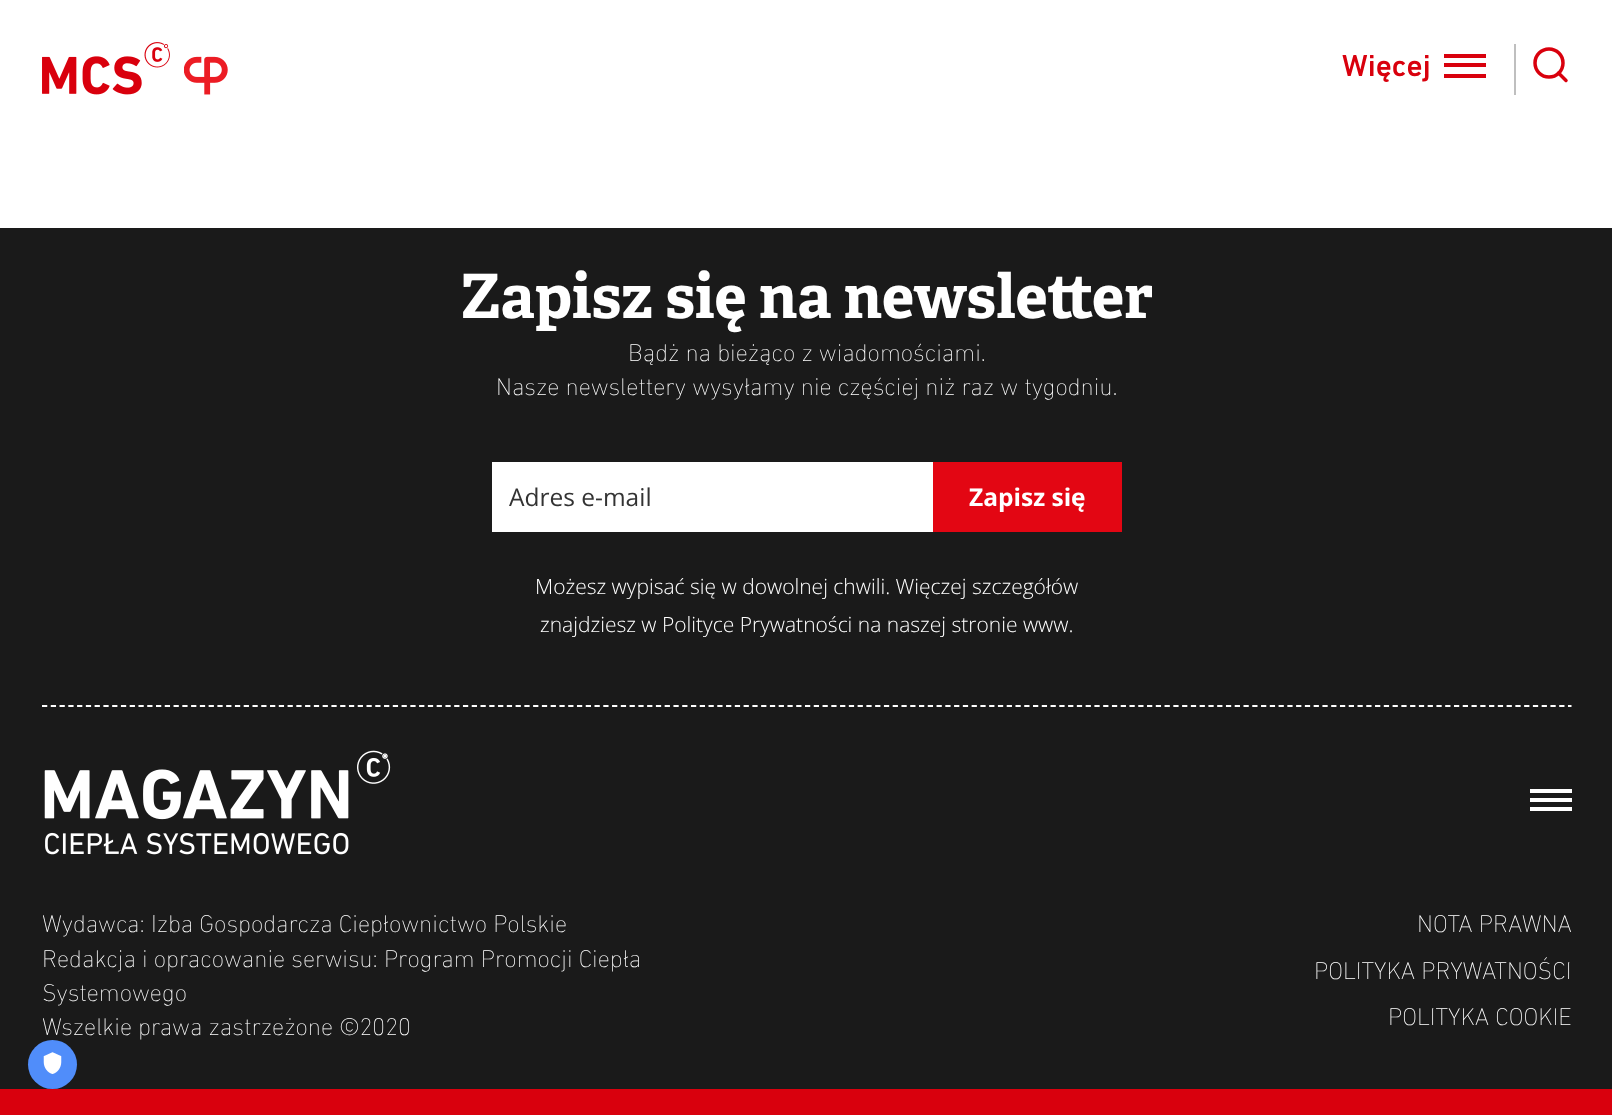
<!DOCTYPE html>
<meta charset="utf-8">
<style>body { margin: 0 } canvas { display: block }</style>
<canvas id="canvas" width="1612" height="1115"></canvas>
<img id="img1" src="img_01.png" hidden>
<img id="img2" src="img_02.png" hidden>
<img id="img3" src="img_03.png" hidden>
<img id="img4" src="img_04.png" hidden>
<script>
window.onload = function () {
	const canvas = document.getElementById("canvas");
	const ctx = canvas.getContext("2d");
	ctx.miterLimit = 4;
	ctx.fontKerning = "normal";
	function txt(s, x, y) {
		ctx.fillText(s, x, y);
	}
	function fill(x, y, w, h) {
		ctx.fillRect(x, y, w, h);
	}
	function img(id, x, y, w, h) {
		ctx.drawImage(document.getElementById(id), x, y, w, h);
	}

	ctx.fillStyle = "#FFFFFF";
	fill(0, 0, 1612, 1115);
	img("img1", 42, 42, 128, 53);
	img("img2", 184, 56, 44, 39);
	ctx.fillStyle = "#D9000D";
	fill(1444, 54, 42, 4);
	fill(1444, 63, 42, 4);
	fill(1444, 74, 42, 4);
	ctx.fillStyle = "#BFBFBF";
	fill(1514, 44, 2, 51);
	ctx.beginPath();
	ctx.moveTo(1566, 80.5);
	ctx.lineTo(1558.5, 73);
	ctx.strokeStyle = "#D9000D";
	ctx.lineWidth = 3.5;
	ctx.lineCap = "round";
	ctx.lineJoin = "round";
	ctx.stroke();
	ctx.beginPath();
	ctx.arc(1549, 63, 14, 0, Math.PI * 2);
	ctx.stroke();
	ctx.fillStyle = "#1A1A1A";
	fill(0, 228, 1612, 861);
	ctx.fillStyle = "#D9000D";
	fill(0, 1089, 1612, 26);
	ctx.fillStyle = "#FFFFFF";
	fill(492, 462, 441, 70);
	ctx.fillStyle = "#E30613";
	fill(933, 462, 189, 70);
	ctx.beginPath();
	ctx.moveTo(42, 706);
	ctx.lineTo(1571.5, 706);
	ctx.strokeStyle = "#FFFFFF";
	ctx.lineWidth = 1.8;
	ctx.lineCap = "butt";
	ctx.lineJoin = "miter";
	ctx.setLineDash([5.25, 3.52]);
	ctx.stroke();
	img("img3", 44, 750, 347, 105);
	ctx.fillStyle = "#FFFFFF";
	fill(1530, 789, 42, 4);
	fill(1530, 798, 42, 4);
	fill(1530, 807, 42, 4);
	ctx.fillStyle = "#508DFA";
	ctx.beginPath();
	ctx.arc(52.5, 1064.5, 24.5, 0, Math.PI * 2);
	ctx.fill();
	img("img4", 43, 1052, 19, 22);
	ctx.font = "500 31px DIN Next";
	ctx.fillStyle = "#D9000D";
	txt("Więcej", 1342, 76);
	ctx.font = "bold 61.25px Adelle";
	ctx.fillStyle = "#FFFFFF";
	txt("Zapisz się na newsletter", 460, 318);
	ctx.font = "200 24.5px DIN Next";
	txt("Bądż na bieżąco z wiadomościami.", 628, 361);
	txt("Nasze newslettery wysyłamy nie częściej niż raz w tygodniu.", 496, 395);
	ctx.font = "24.5px Open Sans";
	ctx.fillStyle = "#333333";
	txt("Adres e-mail", 509, 506);
	ctx.font = "bold 24.5px Open Sans";
	ctx.fillStyle = "#FFFFFF";
	txt("Zapisz się", 969, 506);
	ctx.font = "300 21px Open Sans";
	txt("Możesz wypisać się w dowolnej chwili. Więczej szczegółów", 535, 594);
	txt("znajdziesz w Polityce Prywatności na naszej stronie www.", 540, 632);
	ctx.font = "200 24.5px DIN Next";
	txt("Wydawca: Izba Gospodarcza Ciepłownictwo Polskie", 42, 932);
	txt("Redakcja i opracowanie serwisu: Program Promocji Ciepła", 42, 967);
	txt("Systemowego", 42, 1001);
	txt("Wszelkie prawa zastrzeżone ©2020", 42, 1035);
	txt("NOTA PRAWNA", 1417, 932);
	txt("POLITYKA PRYWATNOŚCI", 1314, 979);
	txt("POLITYKA COOKIE", 1388, 1025);
};
</script>
